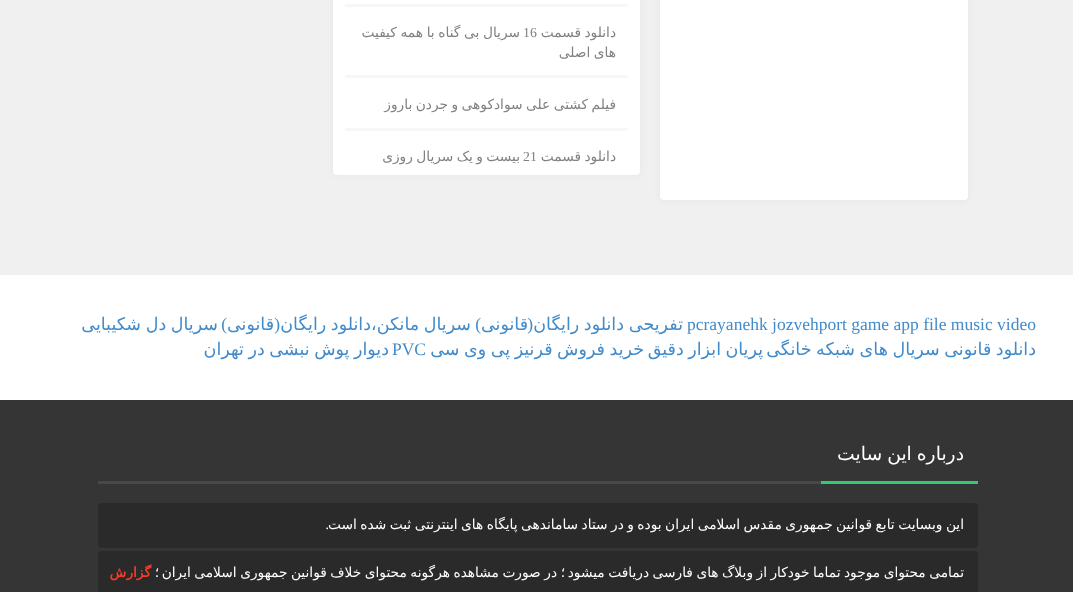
<!DOCTYPE html>
<meta charset="utf-8">
<style>body { margin: 0 } canvas { display: block }</style>
<canvas id="canvas" width="1073" height="592"></canvas>
<script>
window.onload = function () {
	const canvas = document.getElementById("canvas");
	const ctx = canvas.getContext("2d");
	ctx.miterLimit = 4;
	ctx.fontKerning = "normal";
	function txt(s, x, y) {
		ctx.fillText(s, x, y);
	}
	function fill(x, y, w, h) {
		ctx.fillRect(x, y, w, h);
	}
	function round(x, y, w, h, r) {
		ctx.beginPath();
		ctx.roundRect(x, y, w, h, r);
		ctx.fill();
	}

	ctx.fillStyle = "#F0F0F0";
	fill(0, 0, 1073, 592);
	ctx.fillStyle = "#E5E5E5";
	ctx.filter = "blur(3px)";
	ctx.beginPath();
	ctx.roundRect(660, -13, 308, 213, 4);
	ctx.fill();
	ctx.filter = "none";
	ctx.fillStyle = "#FFFFFF";
	round(660, -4, 308, 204, 4);
	ctx.fillStyle = "#E5E5E5";
	ctx.filter = "blur(3px)";
	ctx.beginPath();
	ctx.roundRect(333, -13, 307, 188, 4);
	ctx.fill();
	ctx.filter = "none";
	ctx.fillStyle = "#FFFFFF";
	round(333, -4, 307, 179, 4);
	ctx.fillStyle = "#F7F7F7";
	fill(345, 4, 283, 3);
	fill(345, 75, 283, 3);
	fill(345, 128, 283, 3);
	ctx.fillStyle = "#FFFFFF";
	fill(0, 275, 1073, 125);
	ctx.fillStyle = "#353535";
	fill(0, 400, 1073, 192);
	ctx.fillStyle = "#484848";
	fill(98, 481, 723, 3);
	ctx.fillStyle = "#2ECC71";
	fill(821, 481, 157, 3);
	ctx.fillStyle = "#2A2A2A";
	round(98, 503, 880, 45, 4);
	round(98, 551, 880, 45, 4);
	ctx.wordSpacing = "-0.9px";
	ctx.direction = "rtl";
	ctx.font = "13.75px DejaVu Sans";
	ctx.fillStyle = "#808080";
	txt("دانلود قسمت", 616, 37);
	ctx.wordSpacing = "0px";
	ctx.direction = "ltr";
	ctx.font = "13.75px Liberation Serif";
	txt("16", 523, 37);
	ctx.wordSpacing = "-0.75px";
	ctx.direction = "rtl";
	ctx.font = "13.75px DejaVu Sans";
	txt("سریال بی گناه با همه کیفیت", 520, 37);
	ctx.wordSpacing = "-0.9px";
	txt("های اصلی", 616, 57);
	txt("فیلم کشتی علی سوادکوهی و جردن باروز", 616, 109);
	txt("دانلود قسمت", 616, 161);
	ctx.wordSpacing = "0px";
	ctx.direction = "ltr";
	ctx.font = "13.75px Liberation Serif";
	txt("21", 523, 161);
	ctx.wordSpacing = "-1px";
	ctx.direction = "rtl";
	ctx.font = "13.75px DejaVu Sans";
	txt("بیست و یک سریال روزی", 520, 161);
	ctx.wordSpacing = "0px";
	ctx.direction = "ltr";
	ctx.font = "17.5px Liberation Serif";
	ctx.fillStyle = "#428BCA";
	txt("pcrayanehk jozvehport game app file music video", 687, 330);
	ctx.direction = "rtl";
	ctx.font = "17.5px DejaVu Sans";
	txt("تفریحی", 683, 330);
	ctx.wordSpacing = "-1px";
	txt("دانلود رایگان", 624, 330);
	ctx.wordSpacing = "0px";
	ctx.font = "17.5px Liberation Serif";
	txt("(", 533, 330);
	ctx.font = "17.5px DejaVu Sans";
	txt("قانونی", 528, 330);
	ctx.font = "17.5px Liberation Serif";
	txt(")", 481, 330);
	ctx.wordSpacing = "-1px";
	ctx.font = "17.5px DejaVu Sans";
	txt("سریال مانکن،دانلود رایگان", 471, 330);
	ctx.wordSpacing = "0px";
	ctx.font = "17.5px Liberation Serif";
	txt("(", 280, 330);
	ctx.font = "17.5px DejaVu Sans";
	txt("قانونی", 274, 330);
	ctx.font = "17.5px Liberation Serif";
	txt(")", 227, 330);
	ctx.wordSpacing = "-1px";
	ctx.font = "17.5px DejaVu Sans";
	txt("سریال دل", 218, 330);
	ctx.wordSpacing = "0px";
	txt("شکیبایی", 141, 330);
	ctx.wordSpacing = "-1px";
	txt("دانلود قانونی سریال های شبکه خانگی", 1036, 355);
	ctx.wordSpacing = "0px";
	txt("پریان", 763, 355);
	ctx.wordSpacing = "-1px";
	txt("ابزار دقیق", 721, 355);
	txt("خرید فروش قرنیز پی وی سی", 644, 355);
	ctx.wordSpacing = "0px";
	ctx.direction = "ltr";
	ctx.font = "17.5px Liberation Serif";
	txt("PVC", 392, 355);
	ctx.wordSpacing = "-1px";
	ctx.direction = "rtl";
	ctx.font = "17.5px DejaVu Sans";
	txt("دیوار پوش نبشی در تهران", 389, 355);
	ctx.font = "18.75px DejaVu Sans";
	ctx.fillStyle = "#FFFFFF";
	txt("درباره این سایت", 964, 460);
	ctx.wordSpacing = "-0.9px";
	ctx.font = "13.75px DejaVu Sans";
	txt("این وبسایت تابع قوانین جمهوری مقدس اسلامی ایران بوده و در ستاد ساماندهی پایگاه های اینترنتی ثبت شده است", 964, 529);
	ctx.wordSpacing = "0px";
	ctx.font = "13.75px Liberation Serif";
	txt(".", 329, 529);
	ctx.wordSpacing = "-0.9px";
	ctx.font = "13.75px DejaVu Sans";
	txt("تمامی محتوای موجود تماما خودکار از وبلاگ های فارسی دریافت میشود", 964, 577);
	ctx.wordSpacing = "0px";
	txt("؛", 159, 577);
	ctx.font = "bold 13.75px DejaVu Sans";
	ctx.fillStyle = "#FF3927";
	txt("گزارش", 151, 577);
	ctx.font = "13.75px DejaVu Sans";
	ctx.fillStyle = "#FFFFFF";
	txt("؛", 565, 577);
	ctx.wordSpacing = "-0.9px";
	txt("در صورت مشاهده هرگونه محتوای خلاف قوانین جمهوری اسلامی ایران", 557, 577);
};
</script>
